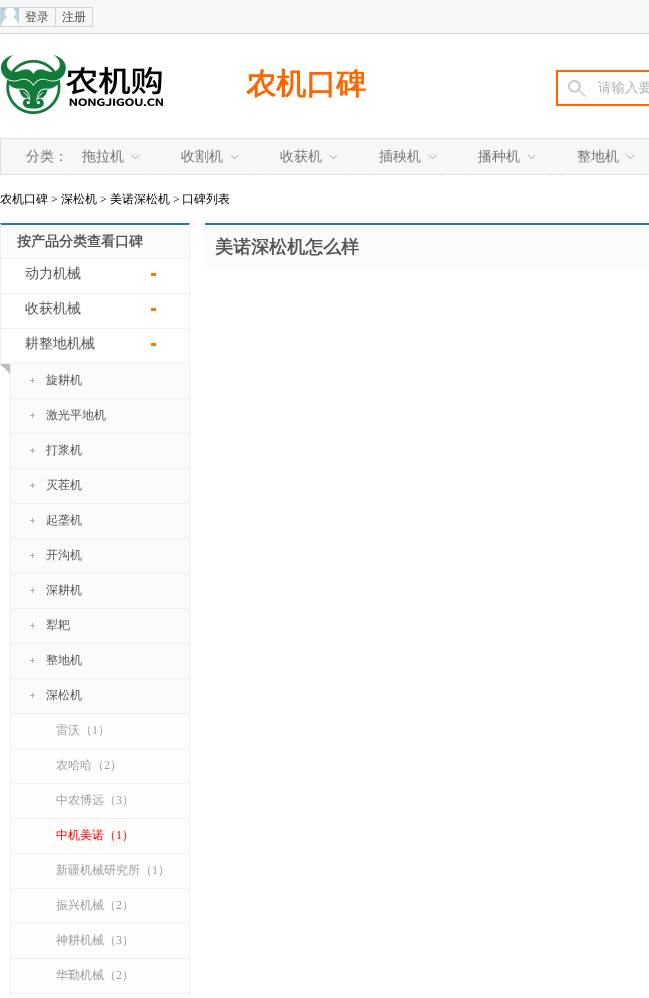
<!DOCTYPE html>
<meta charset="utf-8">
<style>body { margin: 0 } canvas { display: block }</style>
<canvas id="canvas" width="649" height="998"></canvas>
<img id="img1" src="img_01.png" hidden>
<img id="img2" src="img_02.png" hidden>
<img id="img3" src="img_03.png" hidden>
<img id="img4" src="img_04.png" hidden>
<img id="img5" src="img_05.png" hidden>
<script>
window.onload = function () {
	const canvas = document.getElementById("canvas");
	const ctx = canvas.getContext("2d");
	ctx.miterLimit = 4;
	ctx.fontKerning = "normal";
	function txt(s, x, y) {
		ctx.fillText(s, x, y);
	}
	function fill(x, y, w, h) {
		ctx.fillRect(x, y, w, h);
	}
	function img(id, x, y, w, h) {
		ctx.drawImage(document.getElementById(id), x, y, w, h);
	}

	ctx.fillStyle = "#FFFFFF";
	fill(0, 0, 649, 998);
	ctx.fillStyle = "#F7F7F7";
	fill(0, 0, 649, 33);
	ctx.fillStyle = "#D4D4D4";
	fill(0, 33, 649, 1);
	ctx.strokeStyle = "#D4D4D4";
	ctx.strokeRect(18.5, 7.5, 37, 19);
	img("img1", 1, 8, 18, 18);
	fill(0, 7, 19, 1);
	fill(0, 26, 19, 1);
	fill(0, 7, 1, 20);
	ctx.strokeRect(55.5, 7.5, 37, 19);
	img("img2", 1, 55, 162, 59);
	ctx.strokeStyle = "#FF6600";
	ctx.lineWidth = 2;
	ctx.strokeRect(557, 71, 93, 34);
	img("img3", 568, 80, 18, 17);
	ctx.fillStyle = "#F7F7F7";
	ctx.beginPath();
	ctx.rect(0.5, 138.5, 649, 36);
	ctx.fill();
	ctx.strokeStyle = "#DFDFDF";
	ctx.lineWidth = 1;
	ctx.stroke();
	fill(149, 174, 1, 1);
	fill(71, 174, 1, 1);
	img("img4", 132, 155, 7, 4);
	fill(248, 174, 1, 1);
	fill(170, 174, 1, 1);
	img("img4", 231, 155, 7, 4);
	fill(347, 174, 1, 1);
	fill(269, 174, 1, 1);
	img("img4", 330, 155, 7, 4);
	fill(446, 174, 1, 1);
	fill(368, 174, 1, 1);
	img("img4", 429, 155, 7, 4);
	fill(545, 174, 1, 1);
	fill(467, 174, 1, 1);
	img("img4", 528, 155, 7, 4);
	fill(644, 174, 1, 1);
	fill(566, 174, 1, 1);
	img("img4", 627, 155, 7, 4);
	ctx.fillStyle = "#FBFBFB";
	fill(1, 225, 188, 33);
	ctx.fillStyle = "#1F74CF";
	ctx.beginPath();
	ctx.moveTo(0, 223);
	ctx.lineTo(190, 223);
	ctx.lineTo(189, 225);
	ctx.lineTo(1, 225);
	ctx.closePath();
	ctx.fill();
	ctx.fillStyle = "#EFEFEF";
	ctx.beginPath();
	ctx.moveTo(190, 223);
	ctx.lineTo(190, 259);
	ctx.lineTo(189, 258);
	ctx.lineTo(189, 225);
	ctx.closePath();
	ctx.fill();
	fill(0, 258, 190, 1);
	ctx.beginPath();
	ctx.moveTo(0, 259);
	ctx.lineTo(0, 223);
	ctx.lineTo(1, 225);
	ctx.lineTo(1, 258);
	ctx.closePath();
	ctx.fill();
	ctx.fillStyle = "#FF7800";
	fill(151, 273, 5, 3);
	ctx.save();
	ctx.beginPath();
	ctx.rect(0, 259, 190, 35);
	ctx.clip();
	ctx.strokeStyle = "#EFEFEF";
	ctx.strokeRect(0.5, 258.5, 189, 35);
	ctx.restore();
	fill(151, 308, 5, 3);
	ctx.save();
	ctx.beginPath();
	ctx.rect(0, 294, 190, 35);
	ctx.clip();
	ctx.strokeStyle = "#EFEFEF";
	ctx.strokeRect(0.5, 293.5, 189, 35);
	ctx.restore();
	fill(151, 343, 5, 3);
	ctx.save();
	ctx.beginPath();
	ctx.rect(0, 329, 190, 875);
	ctx.clip();
	ctx.strokeStyle = "#EFEFEF";
	ctx.strokeRect(0.5, 328.5, 189, 35);
	ctx.restore();
	ctx.fillStyle = "#BBBBBB";
	ctx.beginPath();
	ctx.moveTo(0, 364);
	ctx.lineTo(10, 364);
	ctx.lineTo(5, 369);
	ctx.closePath();
	ctx.fill();
	ctx.beginPath();
	ctx.moveTo(10, 364);
	ctx.lineTo(10, 374);
	ctx.lineTo(5, 369);
	ctx.closePath();
	ctx.fill();
	ctx.fillStyle = "#FFFFFF";
	ctx.beginPath();
	ctx.moveTo(10, 374);
	ctx.lineTo(0, 374);
	ctx.lineTo(5, 369);
	ctx.closePath();
	ctx.fill();
	ctx.beginPath();
	ctx.moveTo(0, 374);
	ctx.lineTo(0, 364);
	ctx.lineTo(5, 369);
	ctx.closePath();
	ctx.fill();
	ctx.fillStyle = "#FBFBFB";
	fill(11, 364, 178, 34);
	img("img5", 30, 378, 5, 5);
	ctx.save();
	ctx.beginPath();
	ctx.rect(10, 364, 180, 35);
	ctx.clip();
	ctx.strokeStyle = "#EFEFEF";
	ctx.strokeRect(10.5, 363.5, 179, 35);
	ctx.restore();
	fill(11, 399, 178, 34);
	img("img5", 30, 413, 5, 5);
	ctx.save();
	ctx.beginPath();
	ctx.rect(10, 399, 180, 35);
	ctx.clip();
	ctx.strokeStyle = "#EFEFEF";
	ctx.strokeRect(10.5, 398.5, 179, 35);
	ctx.restore();
	fill(11, 434, 178, 34);
	img("img5", 30, 448, 5, 5);
	ctx.save();
	ctx.beginPath();
	ctx.rect(10, 434, 180, 35);
	ctx.clip();
	ctx.strokeStyle = "#EFEFEF";
	ctx.strokeRect(10.5, 433.5, 179, 35);
	ctx.restore();
	fill(11, 469, 178, 34);
	img("img5", 30, 483, 5, 5);
	ctx.save();
	ctx.beginPath();
	ctx.rect(10, 469, 180, 35);
	ctx.clip();
	ctx.strokeStyle = "#EFEFEF";
	ctx.strokeRect(10.5, 468.5, 179, 35);
	ctx.restore();
	fill(11, 504, 178, 34);
	img("img5", 30, 518, 5, 5);
	ctx.save();
	ctx.beginPath();
	ctx.rect(10, 504, 180, 35);
	ctx.clip();
	ctx.strokeStyle = "#EFEFEF";
	ctx.strokeRect(10.5, 503.5, 179, 35);
	ctx.restore();
	fill(11, 539, 178, 34);
	img("img5", 30, 553, 5, 5);
	ctx.save();
	ctx.beginPath();
	ctx.rect(10, 539, 180, 35);
	ctx.clip();
	ctx.strokeStyle = "#EFEFEF";
	ctx.strokeRect(10.5, 538.5, 179, 35);
	ctx.restore();
	fill(11, 574, 178, 34);
	img("img5", 30, 588, 5, 5);
	ctx.save();
	ctx.beginPath();
	ctx.rect(10, 574, 180, 35);
	ctx.clip();
	ctx.strokeStyle = "#EFEFEF";
	ctx.strokeRect(10.5, 573.5, 179, 35);
	ctx.restore();
	fill(11, 609, 178, 34);
	img("img5", 30, 623, 5, 5);
	ctx.save();
	ctx.beginPath();
	ctx.rect(10, 609, 180, 35);
	ctx.clip();
	ctx.strokeStyle = "#EFEFEF";
	ctx.strokeRect(10.5, 608.5, 179, 35);
	ctx.restore();
	fill(11, 644, 178, 34);
	img("img5", 30, 658, 5, 5);
	ctx.save();
	ctx.beginPath();
	ctx.rect(10, 644, 180, 35);
	ctx.clip();
	ctx.strokeStyle = "#EFEFEF";
	ctx.strokeRect(10.5, 643.5, 179, 35);
	ctx.restore();
	fill(11, 679, 178, 34);
	img("img5", 30, 693, 5, 5);
	ctx.save();
	ctx.beginPath();
	ctx.rect(10, 679, 180, 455);
	ctx.clip();
	ctx.strokeStyle = "#EFEFEF";
	ctx.strokeRect(10.5, 678.5, 179, 35);
	ctx.restore();
	ctx.fillStyle = "#FFFEFC";
	ctx.beginPath();
	ctx.rect(10.5, 713.5, 179, 35);
	ctx.fill();
	ctx.strokeStyle = "#EFEFEF";
	ctx.stroke();
	ctx.beginPath();
	ctx.rect(10.5, 748.5, 179, 35);
	ctx.fill();
	ctx.stroke();
	ctx.beginPath();
	ctx.rect(10.5, 783.5, 179, 35);
	ctx.fill();
	ctx.stroke();
	ctx.beginPath();
	ctx.rect(10.5, 818.5, 179, 35);
	ctx.fill();
	ctx.stroke();
	ctx.beginPath();
	ctx.rect(10.5, 853.5, 179, 35);
	ctx.fill();
	ctx.stroke();
	ctx.beginPath();
	ctx.rect(10.5, 888.5, 179, 35);
	ctx.fill();
	ctx.stroke();
	ctx.beginPath();
	ctx.rect(10.5, 923.5, 179, 35);
	ctx.fill();
	ctx.stroke();
	ctx.beginPath();
	ctx.rect(10.5, 958.5, 179, 35);
	ctx.fill();
	ctx.stroke();
	ctx.beginPath();
	ctx.rect(10.5, 993.5, 179, 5);
	ctx.fill();
	ctx.stroke();
	ctx.fillStyle = "#FBFBFB";
	fill(205, 225, 444, 45);
	ctx.fillStyle = "#1F74CF";
	fill(205, 223, 444, 2);
	ctx.font = "500 12px WenQuanYi Zen Hei";
	ctx.fillStyle = "#555555";
	txt("登录", 25, 21);
	txt("注册", 62, 21);
	ctx.font = "bold 30px WenQuanYi Zen Hei";
	ctx.fillStyle = "#FF6600";
	txt("农机口碑", 246, 94);
	ctx.font = "500 13.5px WenQuanYi Zen Hei";
	ctx.fillStyle = "#B4B4B4";
	txt("请输入要", 598, 92);
	ctx.font = "500 14px WenQuanYi Zen Hei";
	ctx.fillStyle = "#767676";
	txt("分类：", 26, 161);
	txt("拖拉机", 82, 161);
	txt("收割机", 181, 161);
	txt("收获机", 280, 161);
	txt("插秧机", 379, 161);
	txt("播种机", 478, 161);
	txt("整地机", 577, 161);
	ctx.font = "500 12px WenQuanYi Zen Hei";
	ctx.fillStyle = "#000000";
	txt("农机口碑", 0, 203);
	ctx.font = "12px Liberation Serif";
	txt(">", 51, 203);
	ctx.font = "500 12px WenQuanYi Zen Hei";
	txt("深松机", 61, 203);
	ctx.font = "12px Liberation Serif";
	txt(">", 100, 203);
	ctx.font = "500 12px WenQuanYi Zen Hei";
	txt("美诺深松机", 110, 203);
	ctx.font = "12px Liberation Serif";
	txt(">", 173, 203);
	ctx.font = "500 12px WenQuanYi Zen Hei";
	txt("口碑列表", 182, 203);
	ctx.font = "bold 14px WenQuanYi Zen Hei";
	ctx.fillStyle = "#555555";
	txt("按产品分类查看口碑", 17, 246);
	ctx.font = "500 14px WenQuanYi Zen Hei";
	txt("动力机械", 25, 278);
	txt("收获机械", 25, 313);
	txt("耕整地机械", 25, 348);
	ctx.font = "500 12px WenQuanYi Zen Hei";
	txt("旋耕机", 46, 384);
	txt("激光平地机", 46, 419);
	txt("打浆机", 46, 454);
	txt("灭茬机", 46, 489);
	txt("起垄机", 46, 524);
	txt("开沟机", 46, 559);
	txt("深耕机", 46, 594);
	txt("犁耙", 46, 629);
	txt("整地机", 46, 664);
	txt("深松机", 46, 699);
	ctx.fillStyle = "#9E9E9E";
	txt("雷沃（", 56, 734);
	ctx.font = "12px Liberation Serif";
	txt("1", 92, 734);
	ctx.font = "500 12px WenQuanYi Zen Hei";
	txt("）", 98, 734);
	txt("农哈哈（", 56, 769);
	ctx.font = "12px Liberation Serif";
	txt("2", 104, 769);
	ctx.font = "500 12px WenQuanYi Zen Hei";
	txt("）", 110, 769);
	txt("中农博远（", 56, 804);
	ctx.font = "12px Liberation Serif";
	txt("3", 116, 804);
	ctx.font = "500 12px WenQuanYi Zen Hei";
	txt("）", 122, 804);
	ctx.fillStyle = "#FF0000";
	txt("中机美诺（", 56, 839);
	ctx.font = "12px Liberation Serif";
	txt("1", 116, 839);
	ctx.font = "500 12px WenQuanYi Zen Hei";
	txt("）", 122, 839);
	ctx.fillStyle = "#9E9E9E";
	txt("新疆机械研究所（", 56, 874);
	ctx.font = "12px Liberation Serif";
	txt("1", 152, 874);
	ctx.font = "500 12px WenQuanYi Zen Hei";
	txt("）", 158, 874);
	txt("振兴机械（", 56, 909);
	ctx.font = "12px Liberation Serif";
	txt("2", 116, 909);
	ctx.font = "500 12px WenQuanYi Zen Hei";
	txt("）", 122, 909);
	txt("神耕机械（", 56, 944);
	ctx.font = "12px Liberation Serif";
	txt("3", 116, 944);
	ctx.font = "500 12px WenQuanYi Zen Hei";
	txt("）", 122, 944);
	txt("华勤机械（", 56, 979);
	ctx.font = "12px Liberation Serif";
	txt("2", 116, 979);
	ctx.font = "500 12px WenQuanYi Zen Hei";
	txt("）", 122, 979);
	ctx.font = "bold 18px WenQuanYi Zen Hei";
	ctx.fillStyle = "#555555";
	txt("美诺深松机怎么样", 215, 253);
};
</script>
